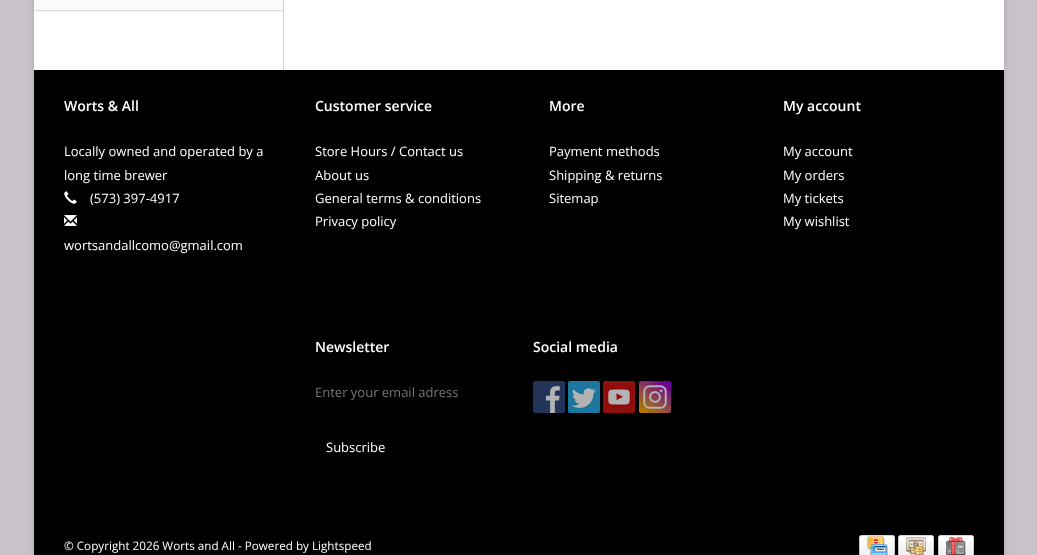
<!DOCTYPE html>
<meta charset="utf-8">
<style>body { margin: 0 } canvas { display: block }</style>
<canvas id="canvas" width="1037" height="555"></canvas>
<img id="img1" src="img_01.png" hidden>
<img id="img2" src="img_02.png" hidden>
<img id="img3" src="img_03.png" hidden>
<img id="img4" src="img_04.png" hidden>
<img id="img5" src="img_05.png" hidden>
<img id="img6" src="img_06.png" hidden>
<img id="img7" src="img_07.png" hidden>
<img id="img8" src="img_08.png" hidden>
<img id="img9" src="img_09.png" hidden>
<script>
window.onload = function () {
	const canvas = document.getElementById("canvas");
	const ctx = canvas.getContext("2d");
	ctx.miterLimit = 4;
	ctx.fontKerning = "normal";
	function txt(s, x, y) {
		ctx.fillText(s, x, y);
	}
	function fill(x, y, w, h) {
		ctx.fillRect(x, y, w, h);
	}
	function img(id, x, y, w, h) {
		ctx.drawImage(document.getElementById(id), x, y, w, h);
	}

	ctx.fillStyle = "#C9C2CA";
	fill(0, 0, 1037, 555);
	ctx.fillStyle = "rgba(0, 0, 0, 0.13)";
	ctx.filter = "blur(3.5px)";
	ctx.beginPath();
	ctx.roundRect(34, -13, 970, 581, 2);
	ctx.fill();
	ctx.filter = "none";
	ctx.fillStyle = "#FFFFFF";
	fill(34, 0, 970, 70);
	ctx.fillStyle = "#D4D4D4";
	fill(283, 0, 1, 70);
	ctx.fillStyle = "#F5F5F5";
	fill(34, 11, 249, 1);
	ctx.fillStyle = "#FCF9FC";
	fill(34, 0, 249, 10);
	ctx.fillStyle = "#DDDBDD";
	fill(34, 10, 249, 1);
	ctx.fillStyle = "#000000";
	fill(34, 70, 970, 485);
	img("img1", 64, 191, 13, 13);
	img("img2", 64, 215, 13, 11);
	img("img3", 533, 381, 32, 32);
	img("img4", 568, 381, 32, 32);
	img("img5", 603, 381, 32, 32);
	img("img6", 639, 381, 32, 32);
	img("img7", 859, 535, 36, 20);
	img("img8", 898, 535, 36, 20);
	img("img9", 938, 535, 36, 20);
	ctx.font = "600 14px Open Sans";
	ctx.fillStyle = "#FFFFFF";
	txt("Worts & All", 64, 111);
	ctx.font = "13px Open Sans";
	txt("Locally owned and operated by a", 64, 156);
	txt("long time brewer", 64, 180);
	txt("(573) 397-4917", 90, 203);
	txt("wortsandallcomo@gmail.com", 64, 250);
	ctx.font = "600 14px Open Sans";
	txt("Customer service", 315, 111);
	ctx.font = "13px Open Sans";
	txt("Store Hours / Contact us", 315, 156);
	txt("About us", 315, 180);
	txt("General terms & conditions", 315, 203);
	txt("Privacy policy", 315, 226);
	ctx.font = "600 14px Open Sans";
	txt("More", 549, 111);
	ctx.font = "13px Open Sans";
	txt("Payment methods", 549, 156);
	txt("Shipping & returns", 549, 180);
	txt("Sitemap", 549, 203);
	ctx.font = "600 14px Open Sans";
	txt("My account", 783, 111);
	ctx.font = "13px Open Sans";
	txt("My account", 783, 156);
	txt("My orders", 783, 180);
	txt("My tickets", 783, 203);
	txt("My wishlist", 783, 226);
	ctx.font = "600 14px Open Sans";
	txt("Newsletter", 315, 352);
	ctx.font = "13px Open Sans";
	ctx.fillStyle = "#757575";
	txt("Enter your email adress", 315, 397);
	ctx.fillStyle = "#FFFFFF";
	txt("Subscribe", 326, 452);
	ctx.font = "600 14px Open Sans";
	txt("Social media", 533, 352);
	ctx.font = "11.7px Open Sans";
	txt("© Copyright 2026 Worts and All - Powered by Lightspeed", 64, 550);
};
</script>
